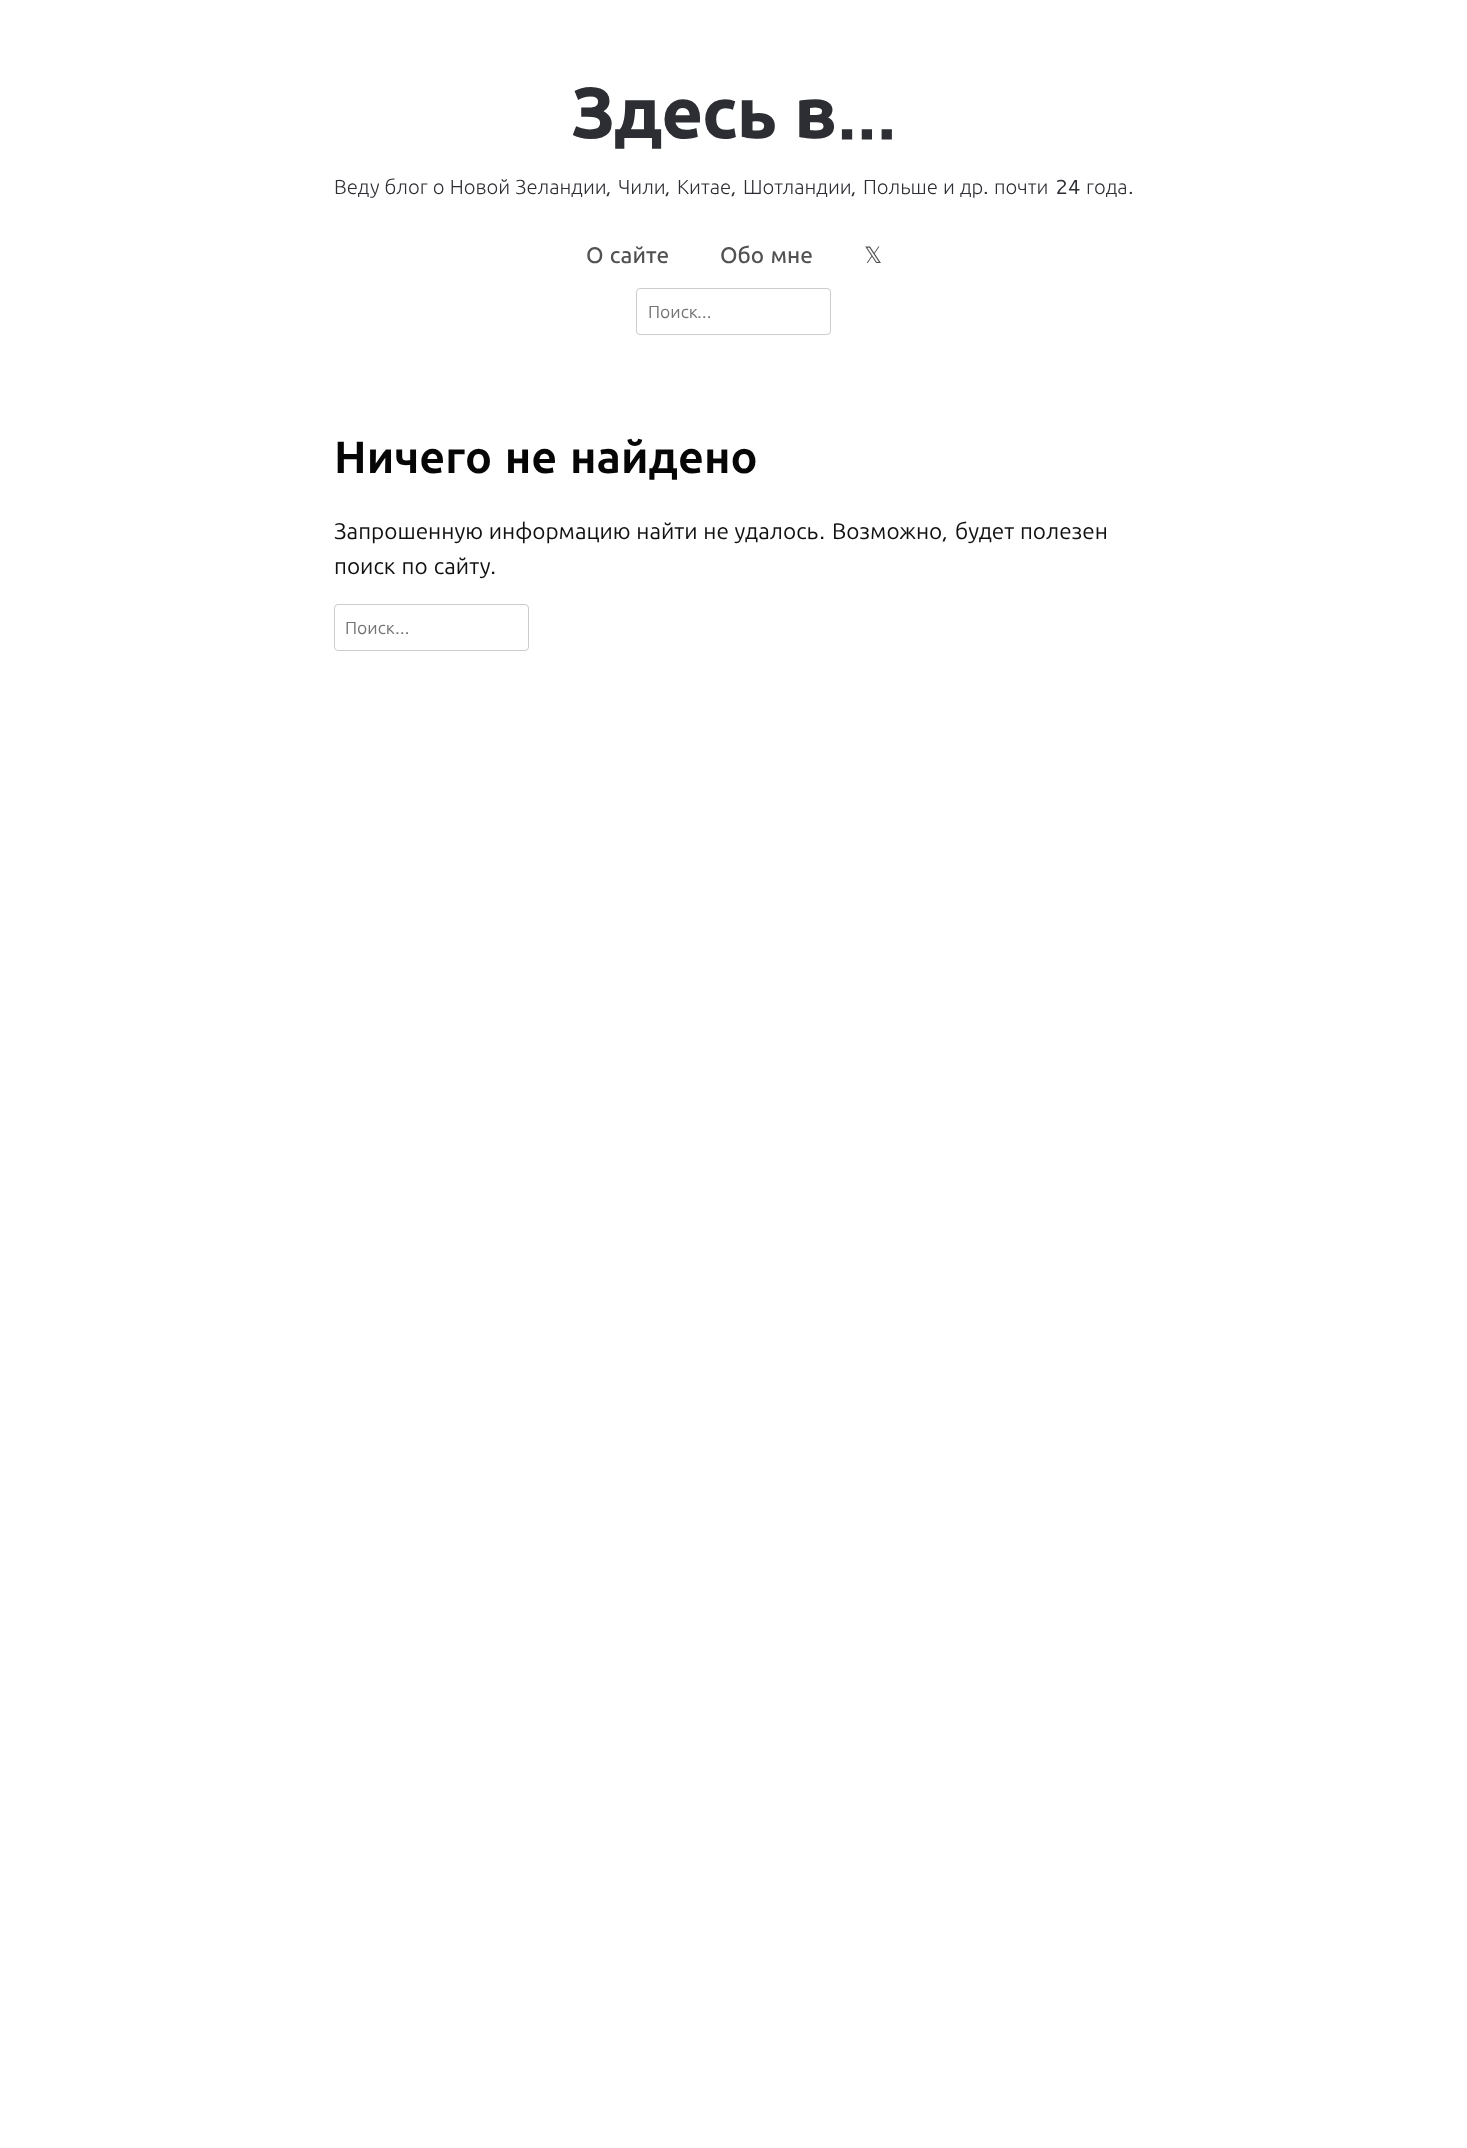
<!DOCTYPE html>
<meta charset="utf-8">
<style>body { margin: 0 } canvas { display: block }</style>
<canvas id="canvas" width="1467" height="2148"></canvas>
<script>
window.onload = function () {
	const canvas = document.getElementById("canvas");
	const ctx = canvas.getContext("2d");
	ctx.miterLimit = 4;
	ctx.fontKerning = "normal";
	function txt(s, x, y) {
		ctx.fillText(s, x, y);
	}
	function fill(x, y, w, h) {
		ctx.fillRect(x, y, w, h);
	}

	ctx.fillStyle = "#FFFFFF";
	fill(0, 0, 1467, 2148);
	ctx.beginPath();
	ctx.roundRect(636.5, 288.5, 194, 46, 3.5);
	ctx.strokeStyle = "#CCCCCC";
	ctx.stroke();
	ctx.beginPath();
	ctx.roundRect(334.5, 604.5, 194, 46, 3.5);
	ctx.stroke();
	ctx.letterSpacing = "-1.25px";
	ctx.wordSpacing = "2px";
	ctx.font = "800 72px Ubuntu";
	ctx.fillStyle = "#2D2E33";
	txt("Здесь в", 571, 138);
	ctx.wordSpacing = "0px";
	ctx.font = "bold 72px Cantarell";
	txt("…", 837, 138);
	ctx.letterSpacing = "0px";
	ctx.wordSpacing = "0.5px";
	ctx.font = "300 20.25px Ubuntu";
	txt("Веду блог о Новой Зеландии", 334, 194);
	ctx.wordSpacing = "0px";
	ctx.font = "20.25px Cantarell";
	txt(",", 606, 194);
	ctx.font = "300 20.25px Ubuntu";
	txt("Чили", 618, 194);
	ctx.font = "20.25px Cantarell";
	txt(",", 665, 194);
	ctx.font = "300 20.25px Ubuntu";
	txt("Китае", 677, 194);
	ctx.font = "20.25px Cantarell";
	txt(",", 731, 194);
	ctx.font = "300 20.25px Ubuntu";
	txt("Шотландии", 743, 194);
	ctx.font = "20.25px Cantarell";
	txt(",", 851, 194);
	ctx.wordSpacing = "0.5px";
	ctx.font = "300 20.25px Ubuntu";
	txt("Польше и др", 863, 194);
	ctx.wordSpacing = "0px";
	ctx.font = "20.25px Cantarell";
	txt(".", 983, 194);
	ctx.font = "300 20.25px Ubuntu";
	txt("почти", 994, 194);
	ctx.font = "20.25px Cantarell";
	txt("24", 1055, 194);
	ctx.font = "300 20.25px Ubuntu";
	txt("года", 1086, 194);
	ctx.font = "20.25px Cantarell";
	txt(".", 1128, 194);
	ctx.wordSpacing = "1px";
	ctx.font = "500 22.5px Ubuntu";
	ctx.fillStyle = "#525252";
	txt("О сайте", 586, 263);
	txt("Обо мне", 720, 263);
	ctx.wordSpacing = "0px";
	ctx.font = "22.5px DejaVu Sans";
	txt("𝕏", 864, 263);
	ctx.font = "17.5px Ubuntu";
	ctx.fillStyle = "#757575";
	txt("Поиск", 648, 318);
	ctx.font = "17.5px Cantarell";
	txt("…", 697, 318);
	ctx.wordSpacing = "2px";
	ctx.font = "bold 45px Ubuntu";
	ctx.fillStyle = "#060606";
	txt("Ничего не найдено", 334, 473);
	ctx.wordSpacing = "0.5px";
	ctx.font = "22.5px Ubuntu";
	ctx.fillStyle = "#111111";
	txt("Запрошенную информацию найти не удалось", 334, 539);
	ctx.wordSpacing = "0px";
	ctx.font = "22.5px Cantarell";
	txt(".", 819, 539);
	ctx.font = "22.5px Ubuntu";
	txt("Возможно", 832, 539);
	ctx.font = "22.5px Cantarell";
	txt(",", 942, 539);
	ctx.wordSpacing = "0.5px";
	ctx.font = "22.5px Ubuntu";
	txt("будет полезен", 955, 539);
	ctx.wordSpacing = "1px";
	txt("поиск по сайту", 334, 574);
	ctx.wordSpacing = "0px";
	ctx.font = "22.5px Cantarell";
	txt(".", 490, 574);
	ctx.font = "17.5px Ubuntu";
	ctx.fillStyle = "#757575";
	txt("Поиск", 345, 634);
	ctx.font = "17.5px Cantarell";
	txt("…", 395, 634);
};
</script>
